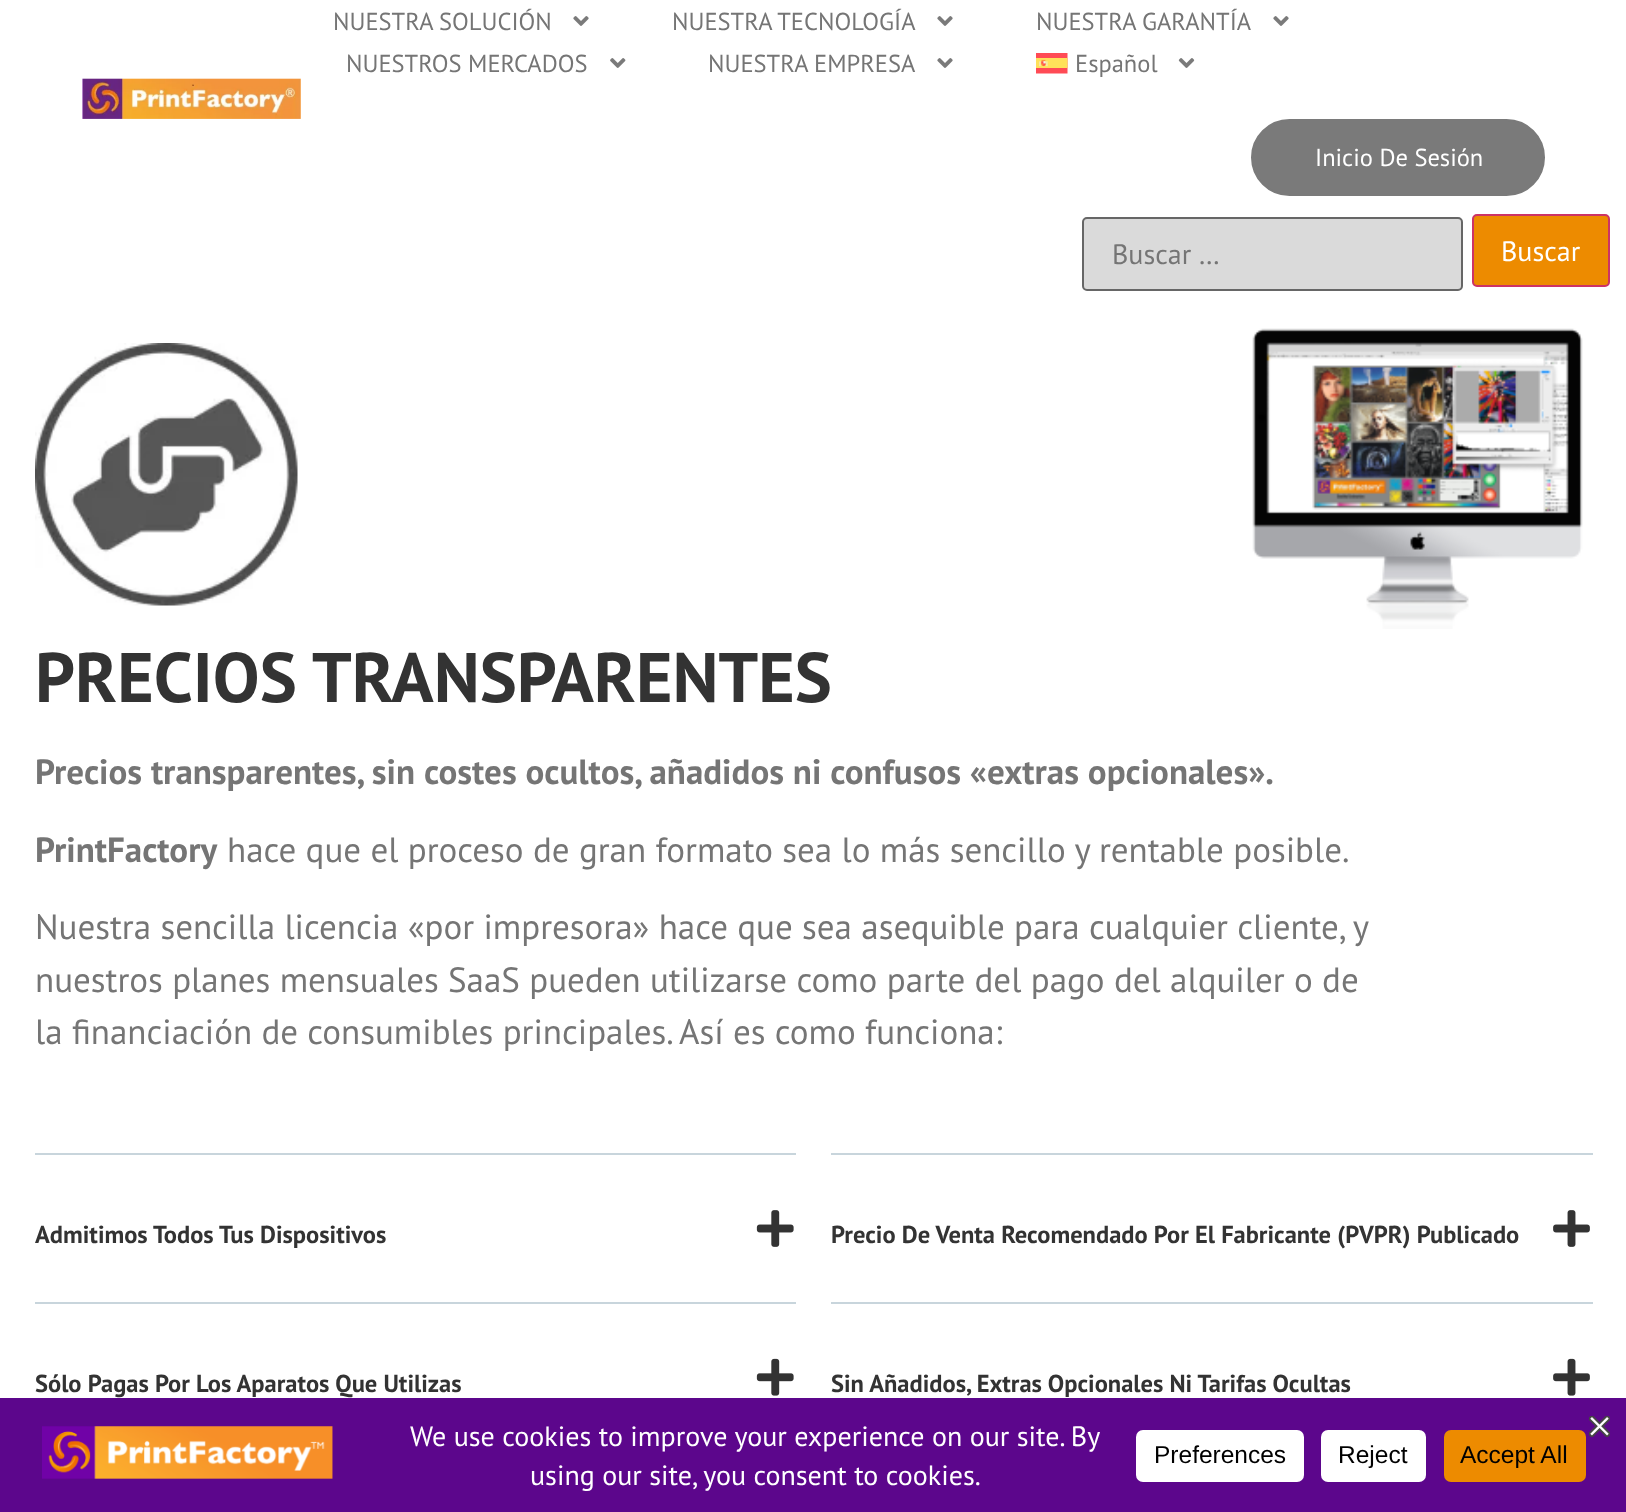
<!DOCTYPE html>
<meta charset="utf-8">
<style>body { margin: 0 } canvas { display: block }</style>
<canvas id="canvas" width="1626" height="1512"></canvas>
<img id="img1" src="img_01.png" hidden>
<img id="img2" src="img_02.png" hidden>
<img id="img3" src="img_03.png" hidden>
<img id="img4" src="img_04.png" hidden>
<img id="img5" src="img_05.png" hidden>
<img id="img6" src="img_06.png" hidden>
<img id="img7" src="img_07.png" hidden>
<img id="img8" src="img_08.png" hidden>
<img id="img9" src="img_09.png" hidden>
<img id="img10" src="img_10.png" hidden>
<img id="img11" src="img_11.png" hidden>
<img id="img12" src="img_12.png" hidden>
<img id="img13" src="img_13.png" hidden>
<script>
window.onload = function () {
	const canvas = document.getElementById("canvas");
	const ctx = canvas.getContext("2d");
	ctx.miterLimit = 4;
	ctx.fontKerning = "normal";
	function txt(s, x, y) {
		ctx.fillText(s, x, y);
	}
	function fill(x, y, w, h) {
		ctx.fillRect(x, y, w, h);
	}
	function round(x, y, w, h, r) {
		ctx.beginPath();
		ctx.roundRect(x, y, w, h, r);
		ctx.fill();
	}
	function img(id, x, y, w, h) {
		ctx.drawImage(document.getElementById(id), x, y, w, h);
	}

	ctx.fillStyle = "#FFFFFF";
	fill(0, 0, 1626, 1512);
	img("img1", 82, 78, 219, 41);
	img("img2", 573, 16, 16, 10);
	img("img2", 937, 16, 16, 10);
	img("img2", 1273, 16, 16, 10);
	img("img3", 610, 58, 16, 10);
	img("img2", 937, 58, 16, 10);
	img("img4", 1036, 53, 32, 21);
	img("img5", 1178, 58, 17, 10);
	ctx.fillStyle = "#7A7A7A";
	ctx.beginPath();
	ctx.roundRect(1252, 120, 292, 75, 37.5);
	ctx.fill();
	ctx.strokeStyle = "#7A7A7A";
	ctx.lineWidth = 2;
	ctx.stroke();
	ctx.fillStyle = "#DADADA";
	ctx.beginPath();
	ctx.roundRect(1083, 218, 379, 72, 4);
	ctx.fill();
	ctx.strokeStyle = "#666666";
	ctx.stroke();
	ctx.fillStyle = "#ED8B00";
	ctx.beginPath();
	ctx.roundRect(1473, 215, 136, 71, 4);
	ctx.fill();
	ctx.strokeStyle = "#CC3366";
	ctx.stroke();
	img("img6", 1252, 328, 331, 301);
	img("img7", 35, 343, 263, 263);
	ctx.fillStyle = "#C8D5DC";
	fill(35, 1153, 761, 2);
	fill(35, 1302, 761, 2);
	img("img8", 756, 1210, 38, 37);
	img("img9", 756, 1358, 38, 38);
	fill(831, 1153, 762, 2);
	fill(831, 1302, 762, 2);
	img("img10", 1553, 1210, 37, 37);
	img("img11", 1553, 1358, 37, 38);
	ctx.fillStyle = "#5C068C";
	fill(0, 1398, 1626, 114);
	img("img12", 42, 1426, 291, 53);
	ctx.fillStyle = "#FFFFFF";
	round(1136, 1430, 168, 52, 7);
	round(1321, 1430, 105, 52, 7);
	ctx.fillStyle = "#ED8B00";
	round(1444, 1430, 142, 52, 7);
	img("img13", 1589, 1416, 21, 21);
	ctx.font = "24.5px PT Sans";
	ctx.fillStyle = "#757575";
	txt("NUESTRA SOLUCIÓN", 333, 30);
	txt("NUESTRA TECNOLOGÍA", 672, 30);
	txt("NUESTRA GARANTÍA", 1036, 30);
	txt("NUESTROS MERCADOS", 346, 72);
	txt("NUESTRA EMPRESA", 708, 72);
	txt("Español", 1075, 72);
	ctx.fillStyle = "#FFFFFF";
	txt("Inicio De Sesión", 1315, 166);
	ctx.font = "28px PT Sans";
	ctx.fillStyle = "#757575";
	txt("Buscar …", 1112, 264);
	ctx.fillStyle = "#FFFFFF";
	txt("Buscar", 1501, 261);
	ctx.font = "bold 70px PT Sans";
	ctx.fillStyle = "#333333";
	txt("PRECIOS TRANSPARENTES", 35, 702);
	ctx.font = "bold 35px PT Sans";
	ctx.fillStyle = "#757575";
	txt("Precios transparentes, sin costes ocultos, añadidos ni confusos «extras opcionales».", 35, 784);
	txt("PrintFactory", 35, 862);
	ctx.font = "35px PT Sans";
	txt("hace que el proceso de gran formato sea lo más sencillo y rentable posible.", 227, 862);
	txt("Nuestra sencilla licencia «por impresora» hace que sea asequible para cualquier cliente, y", 35, 939);
	txt("nuestros planes mensuales SaaS pueden utilizarse como parte del pago del alquiler o de", 35, 992);
	txt("la financiación de consumibles principales.", 35, 1044);
	txt("Así es como funciona:", 679, 1044);
	ctx.font = "bold 24.5px PT Sans";
	ctx.fillStyle = "#333333";
	txt("Admitimos Todos Tus Dispositivos", 35, 1243);
	txt("Sólo Pagas Por Los Aparatos Que Utilizas", 35, 1392);
	txt("Precio De Venta Recomendado Por El Fabricante (PVPR) Publicado", 831, 1243);
	txt("Sin Añadidos, Extras Opcionales Ni Tarifas Ocultas", 831, 1392);
	ctx.font = "28px PT Sans";
	ctx.fillStyle = "#FFFFFF";
	txt("We use cookies to improve your experience on our site. By", 410, 1446);
	txt("using our site, you consent to cookies.", 530, 1485);
	ctx.font = "24.5px Liberation Sans";
	ctx.fillStyle = "#000000";
	txt("Preferences", 1154, 1463);
	txt("Reject", 1338, 1463);
	txt("Accept All", 1460, 1463);
};
</script>
